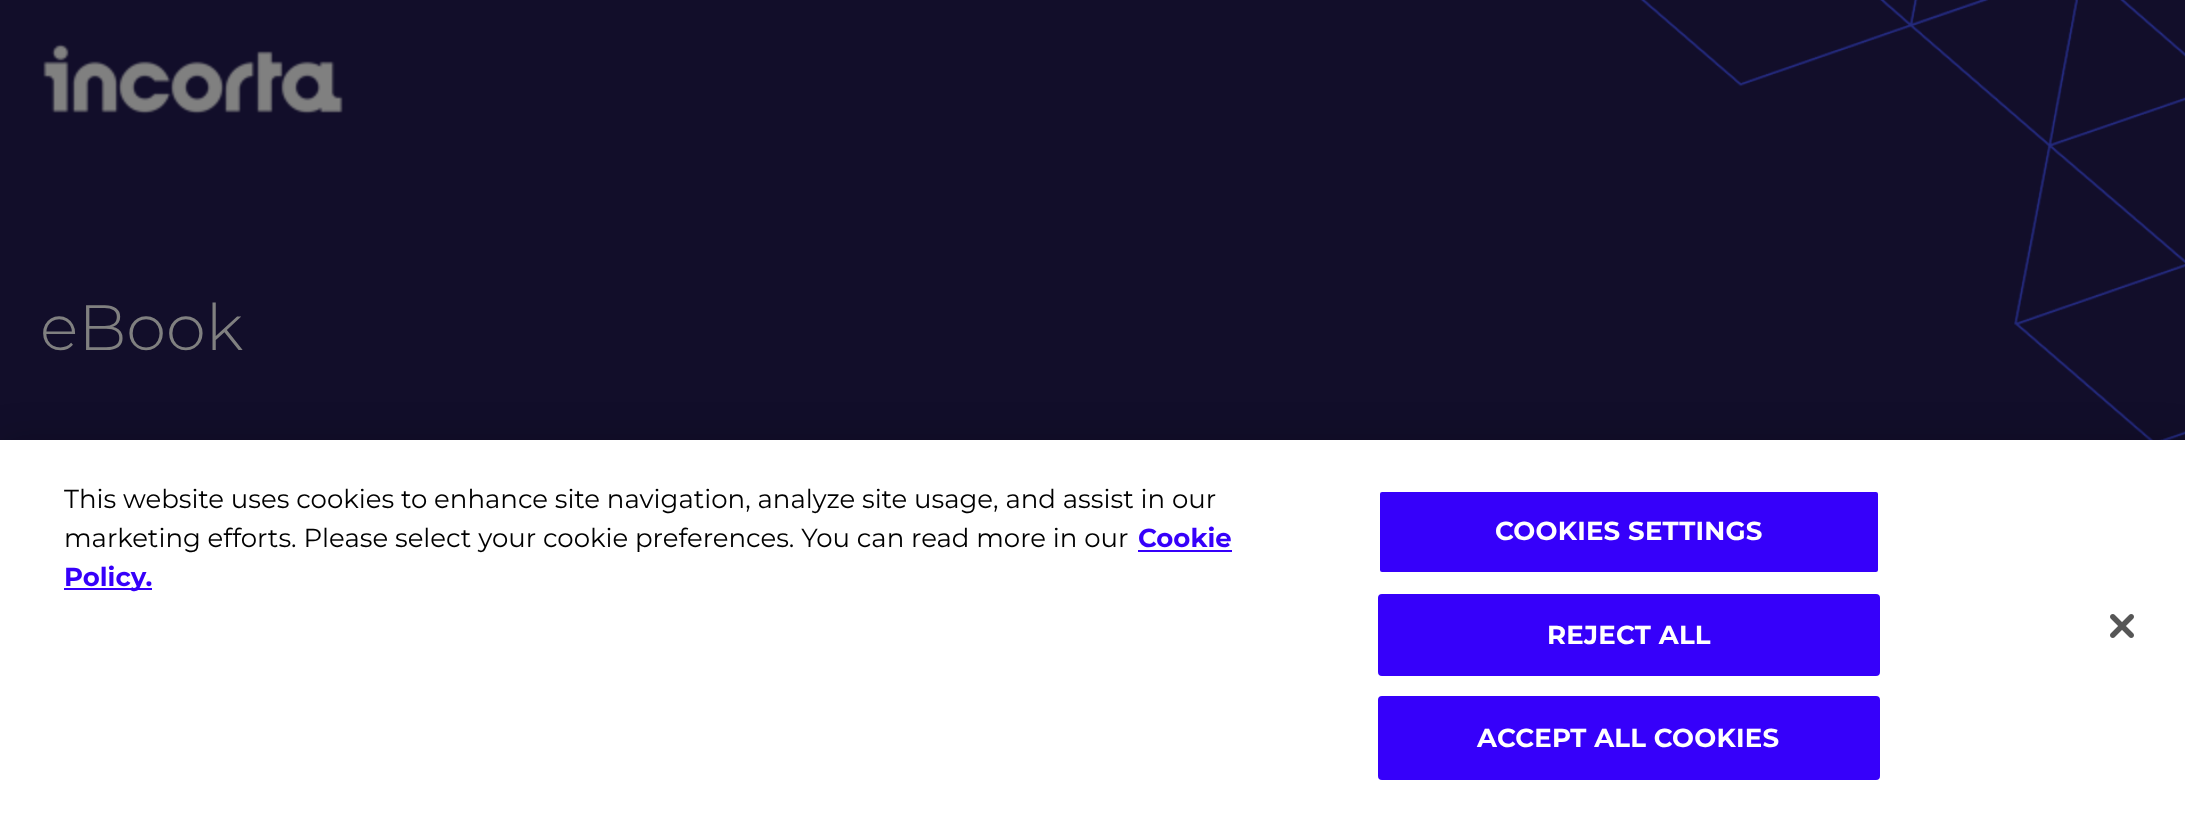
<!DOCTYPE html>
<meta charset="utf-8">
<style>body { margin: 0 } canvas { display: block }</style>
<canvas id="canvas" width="2185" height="819"></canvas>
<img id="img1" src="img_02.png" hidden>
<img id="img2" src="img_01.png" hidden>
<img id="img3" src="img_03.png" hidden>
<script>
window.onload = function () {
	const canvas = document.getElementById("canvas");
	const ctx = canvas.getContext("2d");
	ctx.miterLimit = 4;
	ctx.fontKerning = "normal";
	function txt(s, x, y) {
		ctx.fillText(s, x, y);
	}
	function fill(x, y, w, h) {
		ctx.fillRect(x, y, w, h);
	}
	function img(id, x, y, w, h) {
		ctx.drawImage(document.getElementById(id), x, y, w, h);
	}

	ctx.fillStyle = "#FFFFFF";
	fill(0, 0, 2185, 819);
	img("img1", 0, 0, 2185, 440);
	img("img2", 43, 43, 300, 72);
	ctx.fillStyle = "rgba(0, 0, 0, 0.2)";
	ctx.filter = "blur(18px)";
	ctx.beginPath();
	ctx.rect(0, 440, 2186, 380);
	ctx.fill();
	ctx.filter = "none";
	ctx.fillStyle = "#FFFFFF";
	fill(0, 440, 2185, 379);
	ctx.fillStyle = "#3600FA";
	fill(1138, 550, 94, 2);
	fill(64, 588, 88, 2);
	ctx.beginPath();
	ctx.roundRect(1379, 491, 500, 82, 3);
	ctx.fill();
	ctx.strokeStyle = "#FFFFFF";
	ctx.lineWidth = 2;
	ctx.stroke();
	ctx.beginPath();
	ctx.roundRect(1379, 595, 500, 80, 3);
	ctx.fill();
	ctx.strokeStyle = "#3600FA";
	ctx.stroke();
	ctx.beginPath();
	ctx.roundRect(1379, 697, 500, 82, 3);
	ctx.fill();
	ctx.stroke();
	img("img3", 2110, 614, 24, 24);
	ctx.font = "300 64px Montserrat";
	ctx.fillStyle = "#808080";
	txt("eBook", 40, 350);
	ctx.font = "26px Montserrat";
	ctx.fillStyle = "#000000";
	txt("This website uses cookies to enhance site navigation, analyze site usage, and assist in our", 64, 508);
	txt("marketing efforts. Please select your cookie preferences. You can read more in our", 64, 547);
	ctx.font = "bold 26px Montserrat";
	ctx.fillStyle = "#3600FA";
	txt("Cookie", 1138, 547);
	txt("Policy.", 64, 586);
	ctx.letterSpacing = "0.25px";
	ctx.fillStyle = "#FFFFFF";
	txt("COOKIES SETTINGS", 1495, 540);
	txt("REJECT ALL", 1547, 644);
	txt("ACCEPT ALL COOKIES", 1477, 747);
};
</script>
